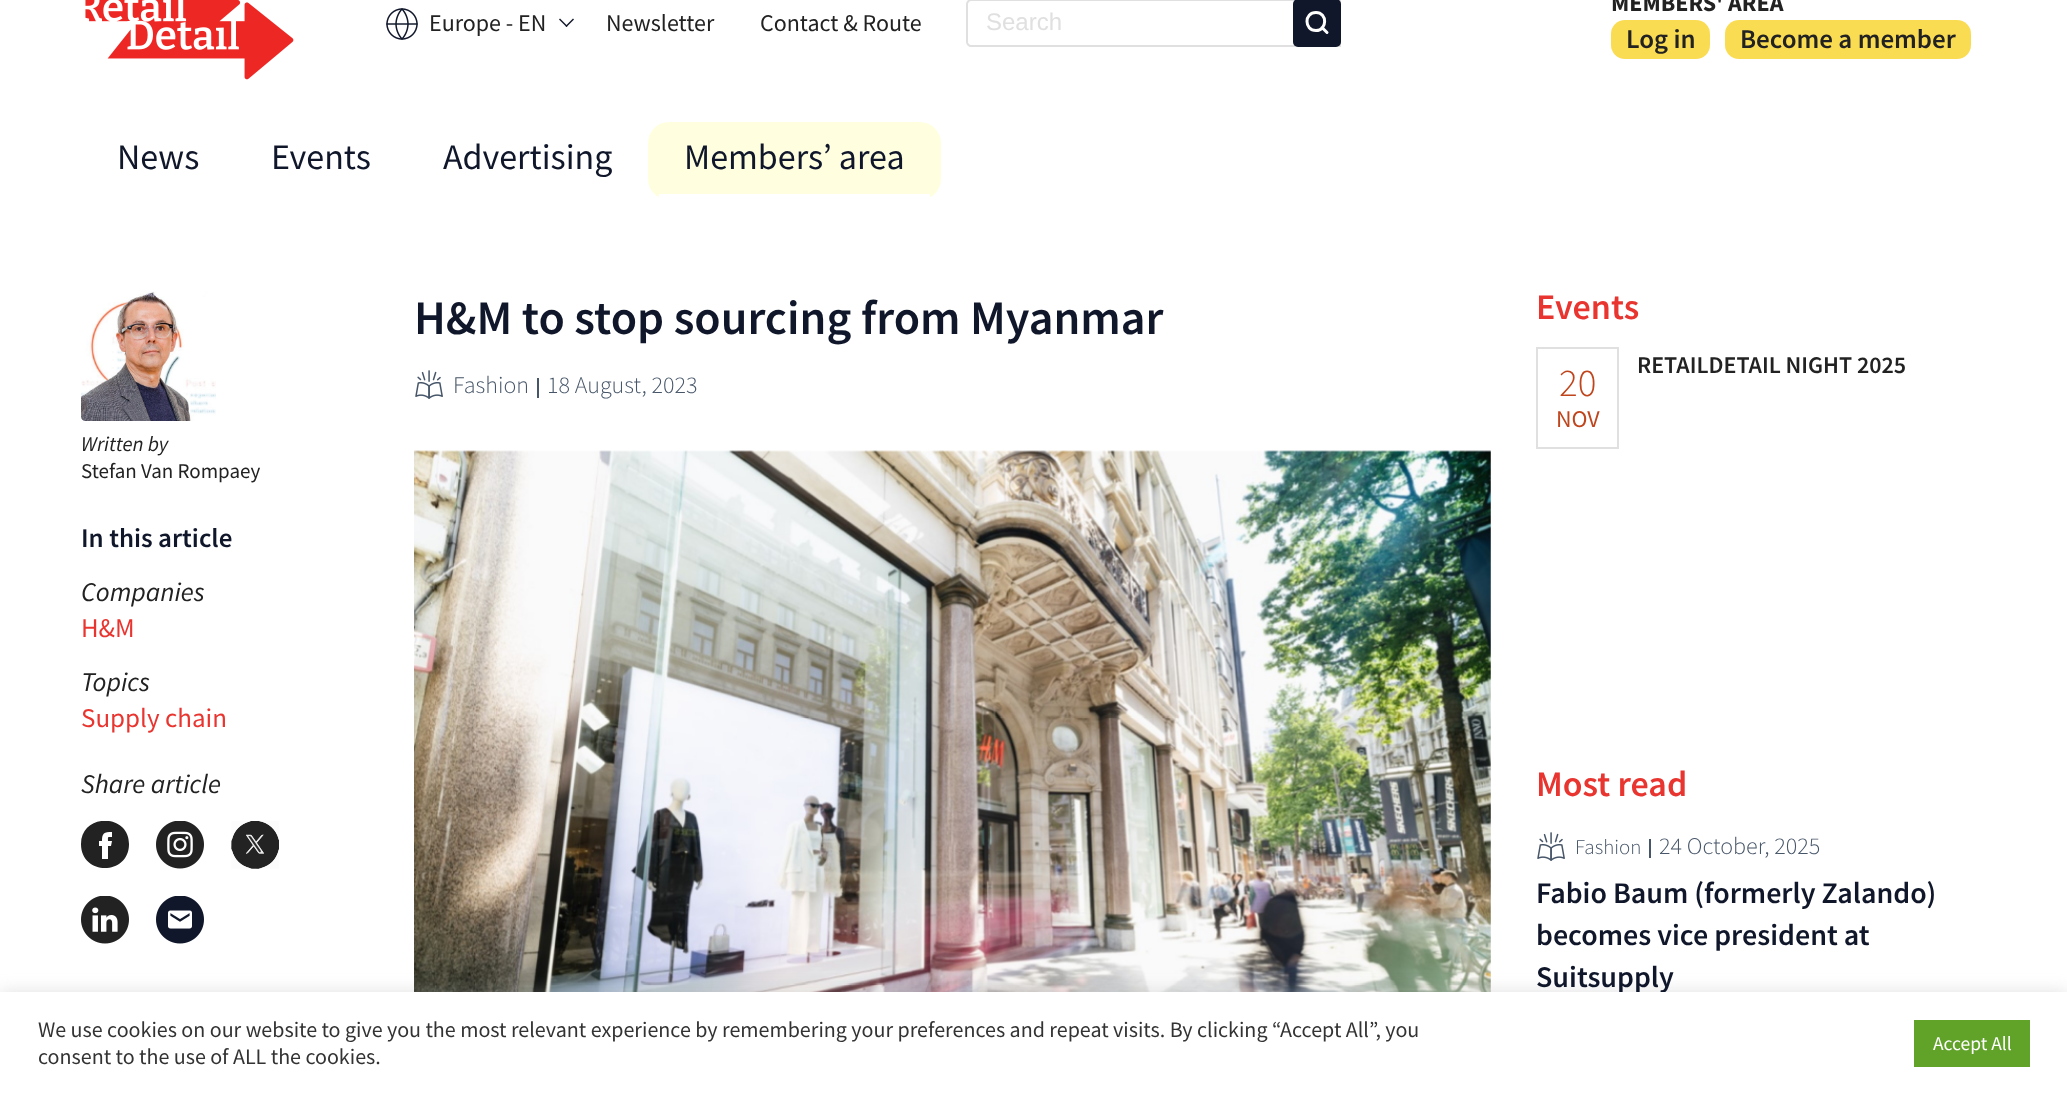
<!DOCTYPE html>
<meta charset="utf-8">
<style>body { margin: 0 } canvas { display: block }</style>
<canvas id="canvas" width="2067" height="1095"></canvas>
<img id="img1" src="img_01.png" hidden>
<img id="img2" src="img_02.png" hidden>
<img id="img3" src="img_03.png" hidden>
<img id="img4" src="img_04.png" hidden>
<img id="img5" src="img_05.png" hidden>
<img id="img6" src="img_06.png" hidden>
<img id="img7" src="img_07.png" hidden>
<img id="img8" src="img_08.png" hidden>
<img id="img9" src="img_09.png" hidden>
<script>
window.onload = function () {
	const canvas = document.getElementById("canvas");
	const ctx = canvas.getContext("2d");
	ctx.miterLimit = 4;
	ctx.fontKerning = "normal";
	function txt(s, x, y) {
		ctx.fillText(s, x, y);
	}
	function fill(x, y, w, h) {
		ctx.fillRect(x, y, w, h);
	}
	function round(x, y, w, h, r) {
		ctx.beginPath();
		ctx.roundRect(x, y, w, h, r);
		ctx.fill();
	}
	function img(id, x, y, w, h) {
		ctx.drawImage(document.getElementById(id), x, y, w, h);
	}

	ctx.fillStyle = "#FFFFFF";
	fill(0, 0, 2067, 1095);
	img("img1", 85, 0, 209, 80);
	img("img2", 386, 8, 32, 32);
	ctx.fillStyle = "#10172A";
	ctx.beginPath();
	ctx.moveTo(574, 19.5);
	ctx.lineTo(566.5, 27);
	ctx.lineTo(565.5, 26);
	ctx.lineTo(573, 18.5);
	ctx.closePath();
	ctx.fill();
	ctx.beginPath();
	ctx.moveTo(567.5, 26);
	ctx.lineTo(566.5, 27);
	ctx.lineTo(559, 19.5);
	ctx.lineTo(560, 18.5);
	ctx.closePath();
	ctx.fill();
	ctx.beginPath();
	ctx.moveTo(971, 0);
	ctx.lineTo(1340, 0);
	ctx.lineTo(1340, 46);
	ctx.lineTo(971, 46);
	ctx.bezierCurveTo(969, 46, 967, 44, 967, 42);
	ctx.lineTo(967, 4);
	ctx.bezierCurveTo(967, 2, 969, 0, 971, 0);
	ctx.closePath();
	ctx.strokeStyle = "#E0E0E0";
	ctx.lineWidth = 2;
	ctx.stroke();
	round(1293, -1, 48, 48, 5);
	ctx.beginPath();
	ctx.moveTo(1316, 30.5);
	ctx.bezierCurveTo(1327.5, 30.5, 1327.5, 12.5, 1316, 12.5);
	ctx.bezierCurveTo(1304, 12.5, 1304, 30.5, 1316, 30.5);
	ctx.closePath();
	ctx.moveTo(1327, 32.5);
	ctx.lineTo(1322, 27.5);
	ctx.strokeStyle = "#FFFFFF";
	ctx.lineWidth = 3;
	ctx.lineCap = "round";
	ctx.lineJoin = "round";
	ctx.stroke();
	ctx.fillStyle = "#FADC53";
	round(1611, 20, 99, 39, 14);
	round(1725, 20, 246, 39, 14);
	ctx.fillStyle = "#FFFFE0";
	round(648, 122, 293, 78, 21);
	ctx.fillStyle = "#FFFFFF";
	fill(659, 194, 271, 6);
	img("img3", 415, 370, 28, 29);
	ctx.fillStyle = "#465568";
	fill(537, 378, 2, 20);
	img("img4", 414, 450, 1077, 542);
	img("img5", 81, 291, 135, 130);
	ctx.save();
	ctx.beginPath();
	ctx.rect(81, 821, 48, 48);
	ctx.clip();
	ctx.fillStyle = "#222222";
	ctx.beginPath();
	ctx.moveTo(81, 844);
	ctx.bezierCurveTo(81, 813, 129, 813, 129, 844);
	ctx.bezierCurveTo(129, 876, 81, 876, 81, 844);
	ctx.closePath();
	ctx.moveTo(108, 859);
	ctx.lineTo(108, 846);
	ctx.lineTo(111, 846);
	ctx.lineTo(112, 841);
	ctx.lineTo(108, 841);
	ctx.bezierCurveTo(108, 837, 107, 837, 112, 837);
	ctx.lineTo(112, 832);
	ctx.bezierCurveTo(104, 832, 102, 833, 102, 841);
	ctx.lineTo(99, 841);
	ctx.lineTo(99, 846);
	ctx.lineTo(102, 846);
	ctx.lineTo(102, 859);
	ctx.closePath();
	ctx.fill("evenodd");
	ctx.restore();
	img("img6", 156, 821, 48, 48);
	img("img7", 231, 821, 48, 48);
	img("img8", 81, 896, 48, 48);
	img("img9", 156, 896, 48, 48);
	ctx.strokeStyle = "#E0E0E0";
	ctx.lineWidth = 2;
	ctx.lineJoin = "miter";
	ctx.strokeRect(1537, 348, 81, 100);
	img("img3", 1537, 832, 28, 29);
	fill(1649, 839, 2, 19);
	ctx.fillStyle = "rgba(172, 171, 171, 0.3)";
	ctx.filter = "blur(7.5px)";
	ctx.beginPath();
	ctx.rect(0, 990, 2067, 104);
	ctx.fill();
	ctx.filter = "none";
	ctx.font = "24px Source Sans Pro";
	ctx.fillStyle = "#222222";
	txt("Europe - EN", 429, 31);
	txt("Newsletter", 606, 31);
	txt("Contact & Route", 760, 31);
	ctx.font = "24px Liberation Sans";
	ctx.fillStyle = "#E0E0E0";
	txt("Search", 986, 30);
	ctx.font = "bold 24px Source Sans Pro";
	ctx.fillStyle = "#222222";
	txt("MEMBERS' AREA", 1611, 11);
	ctx.font = "600 27px Source Sans Pro";
	txt("Log in", 1626, 48);
	txt("Become a member", 1740, 48);
	ctx.font = "36px Source Sans Pro";
	ctx.fillStyle = "#10172A";
	txt("News", 117, 169);
	txt("Events", 271, 169);
	txt("Advertising", 443, 169);
	txt("Members’ area", 684, 169);
	ctx.font = "600 48px Source Sans Pro";
	txt("H&M to stop sourcing from Myanmar", 414, 334);
	ctx.font = "300 24px Source Sans Pro";
	ctx.fillStyle = "#465568";
	txt("Fashion", 453, 393);
	txt("18 August, 2023", 547, 393);
	ctx.font = "italic 21px Source Sans Pro";
	ctx.fillStyle = "#222222";
	txt("Written by", 81, 451);
	ctx.font = "21px Source Sans Pro";
	txt("Stefan Van Rompaey", 81, 478);
	ctx.font = "600 27px Source Sans Pro";
	ctx.fillStyle = "#10172A";
	txt("In this article", 81, 547);
	ctx.font = "italic 27px Source Sans Pro";
	ctx.fillStyle = "#222222";
	txt("Companies", 81, 601);
	ctx.font = "27px Source Sans Pro";
	ctx.fillStyle = "#E93530";
	txt("H&M", 81, 637);
	ctx.font = "italic 27px Source Sans Pro";
	ctx.fillStyle = "#222222";
	txt("Topics", 81, 691);
	ctx.font = "27px Source Sans Pro";
	ctx.fillStyle = "#E93530";
	txt("Supply chain", 81, 727);
	ctx.font = "italic 27px Source Sans Pro";
	ctx.fillStyle = "#222222";
	txt("Share article", 81, 793);
	ctx.font = "600 36px Source Sans Pro";
	ctx.fillStyle = "#E93530";
	txt("Events", 1536, 319);
	ctx.font = "600 24px Source Sans Pro";
	ctx.fillStyle = "#222222";
	txt("RETAILDETAIL NIGHT 2025", 1637, 373);
	ctx.font = "300 39px Source Sans Pro";
	ctx.fillStyle = "#BF451C";
	txt("20", 1559, 396);
	ctx.font = "24px Source Sans Pro";
	txt("NOV", 1556, 427);
	ctx.font = "600 36px Source Sans Pro";
	ctx.fillStyle = "#E93530";
	txt("Most read", 1536, 796);
	ctx.font = "300 21px Source Sans Pro";
	ctx.fillStyle = "#465568";
	txt("Fashion", 1575, 854);
	ctx.font = "300 24px Source Sans Pro";
	txt("24 October, 2025", 1659, 854);
	ctx.font = "600 30px Source Sans Pro";
	ctx.fillStyle = "#10172A";
	txt("Fabio Baum (formerly Zalando)", 1536, 903);
	txt("becomes vice president at", 1536, 945);
	txt("Suitsupply", 1536, 987);
	ctx.fillStyle = "#FFFFFF";
	fill(0, 992, 2067, 103);
	ctx.font = "22px Source Sans Pro";
	ctx.fillStyle = "#333333";
	txt("We use cookies on our website to give you the most relevant experience by remembering your preferences and repeat visits. By clicking “Accept All”, you", 38, 1037);
	txt("consent to the use of ALL the cookies.", 38, 1064);
	ctx.fillStyle = "#61A229";
	fill(1914, 1020, 116, 47);
	ctx.font = "19.5px Source Sans Pro";
	ctx.fillStyle = "#FFFFFF";
	txt("Accept All", 1933, 1050);
};
</script>
